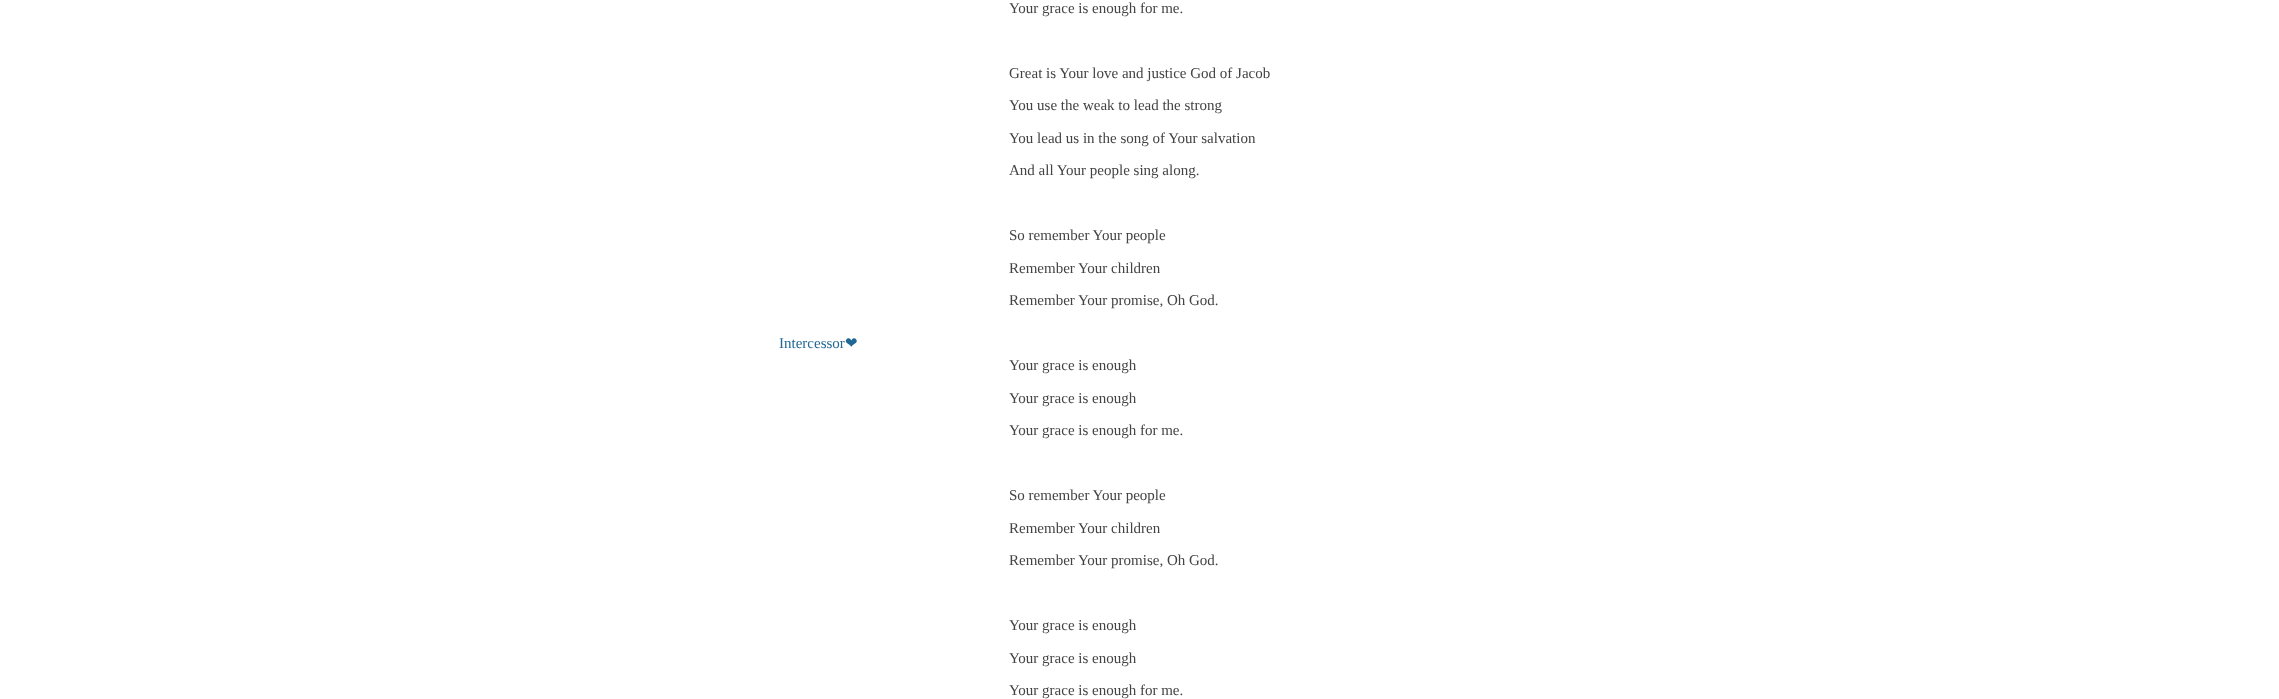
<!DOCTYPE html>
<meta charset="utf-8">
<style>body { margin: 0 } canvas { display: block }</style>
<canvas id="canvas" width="2279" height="699"></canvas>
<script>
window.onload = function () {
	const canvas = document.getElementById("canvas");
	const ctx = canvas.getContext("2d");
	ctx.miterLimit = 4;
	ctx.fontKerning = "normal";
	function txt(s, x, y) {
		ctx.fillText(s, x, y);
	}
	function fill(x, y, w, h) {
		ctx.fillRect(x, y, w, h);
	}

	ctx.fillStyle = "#FFFFFF";
	fill(0, 0, 2279, 699);
	ctx.font = "15px Liberation Serif";
	ctx.fillStyle = "#216794";
	txt("Intercessor", 779, 348);
	ctx.font = "15px DejaVu Sans";
	txt("❤", 845, 348);
	ctx.font = "15px Liberation Serif";
	ctx.fillStyle = "#434343";
	txt("Your grace is enough for me.", 1009, 13);
	txt("Great is Your love and justice God of Jacob", 1009, 78);
	txt("You use the weak to lead the strong", 1009, 110);
	txt("You lead us in the song of Your salvation", 1009, 143);
	txt("And all Your people sing along.", 1009, 175);
	txt("So remember Your people", 1009, 240);
	txt("Remember Your children", 1009, 273);
	txt("Remember Your promise, Oh God.", 1009, 305);
	txt("Your grace is enough", 1009, 370);
	txt("Your grace is enough", 1009, 403);
	txt("Your grace is enough for me.", 1009, 435);
	txt("So remember Your people", 1009, 500);
	txt("Remember Your children", 1009, 533);
	txt("Remember Your promise, Oh God.", 1009, 565);
	txt("Your grace is enough", 1009, 630);
	txt("Your grace is enough", 1009, 663);
	txt("Your grace is enough for me.", 1009, 695);
};
</script>
